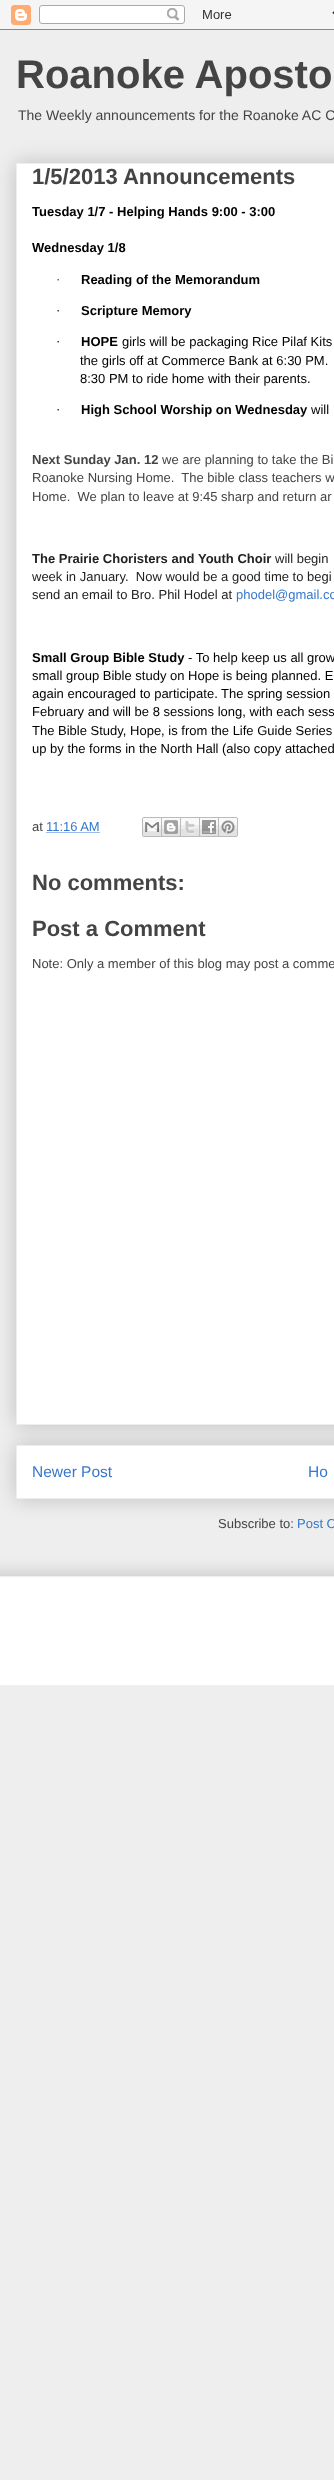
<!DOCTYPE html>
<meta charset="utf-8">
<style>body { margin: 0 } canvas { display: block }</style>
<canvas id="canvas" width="334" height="2480"></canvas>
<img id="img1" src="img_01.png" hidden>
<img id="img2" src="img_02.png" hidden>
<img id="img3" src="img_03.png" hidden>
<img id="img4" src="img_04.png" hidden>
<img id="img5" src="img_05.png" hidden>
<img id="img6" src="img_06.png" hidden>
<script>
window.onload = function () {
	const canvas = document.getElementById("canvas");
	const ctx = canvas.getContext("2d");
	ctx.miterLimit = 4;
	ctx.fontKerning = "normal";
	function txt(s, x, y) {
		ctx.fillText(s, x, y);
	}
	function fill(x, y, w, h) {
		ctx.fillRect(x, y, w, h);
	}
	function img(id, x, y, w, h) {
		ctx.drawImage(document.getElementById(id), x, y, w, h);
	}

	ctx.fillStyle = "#EEEEEE";
	fill(0, 0, 334, 2480);
	img("img1", 0, 0, 334, 30);
	ctx.fillStyle = "rgba(0, 0, 0, 0.2)";
	ctx.filter = "blur(10px)";
	ctx.beginPath();
	ctx.rect(16, 1445, 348, 54);
	ctx.fill();
	ctx.filter = "none";
	ctx.fillStyle = "#FFFFFF";
	ctx.beginPath();
	ctx.rect(16.5, 1445.5, 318, 53);
	ctx.fill();
	ctx.strokeStyle = "#EEEEEE";
	ctx.stroke();
	ctx.fillStyle = "rgba(0, 0, 0, 0.2)";
	ctx.filter = "blur(10px)";
	ctx.beginPath();
	ctx.rect(16, 163, 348, 1262);
	ctx.fill();
	ctx.filter = "none";
	ctx.fillStyle = "#FFFFFF";
	ctx.beginPath();
	ctx.rect(16.5, 163.5, 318, 1261);
	ctx.fill();
	ctx.stroke();
	ctx.beginPath();
	ctx.moveTo(46.5, 832.5);
	ctx.lineTo(100, 832.5);
	ctx.strokeStyle = "#3778CD";
	ctx.setLineDash([1, 1]);
	ctx.stroke();
	img("img2", 142, 817, 20, 20);
	img("img3", 162, 817, 19, 20);
	img("img4", 181, 817, 19, 20);
	img("img5", 200, 817, 19, 20);
	img("img6", 219, 817, 19, 20);
	ctx.save();
	ctx.beginPath();
	ctx.rect(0, 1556, 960, 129);
	ctx.clip();
	ctx.fillStyle = "rgba(0, 0, 0, 0.2)";
	ctx.filter = "blur(10px)";
	ctx.beginPath();
	ctx.rect(-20, 1576, 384, 109);
	ctx.fill();
	ctx.filter = "none";
	ctx.restore();
	fill(0, 1577, 334, 108);
	ctx.fillStyle = "#EEEEEE";
	fill(0, 1576, 334, 1);
	ctx.font = "bold 40px Liberation Sans";
	ctx.fillStyle = "#444444";
	txt("Roanoke Aposto", 16, 88);
	ctx.font = "14px Liberation Sans";
	txt("The Weekly announcements for the Roanoke AC C", 18, 120);
	ctx.font = "bold 22px Liberation Sans";
	txt("1/5/2013 Announcements", 32, 184);
	ctx.font = "bold 13px Liberation Sans";
	ctx.fillStyle = "#000000";
	txt("Tuesday 1/7 - Helping Hands 9:00 - 3:00", 32, 216);
	txt("Wednesday 1/8", 32, 252);
	ctx.font = "13px Liberation Serif";
	ctx.fillStyle = "#444444";
	txt("·", 56, 284);
	ctx.font = "bold 13px Liberation Sans";
	ctx.fillStyle = "#000000";
	txt("Reading of the Memorandum", 81, 284);
	ctx.font = "13px Liberation Serif";
	txt("·", 56, 315);
	ctx.font = "bold 13px Liberation Sans";
	txt("Scripture Memory", 81, 315);
	ctx.font = "13px Liberation Serif";
	txt("·", 56, 346);
	ctx.font = "bold 13px Liberation Sans";
	txt("HOPE", 81, 346);
	ctx.font = "13px Liberation Sans";
	txt("girls will be packaging Rice Pilaf Kits", 122, 346);
	txt("the girls off at Commerce Bank at 6:30 PM.", 80, 365);
	txt("8:30 PM to ride home with their parents.", 80, 383);
	ctx.font = "13px Liberation Serif";
	txt("·", 56, 414);
	ctx.font = "bold 13px Liberation Sans";
	txt("High School Worship on Wednesday", 81, 414);
	ctx.font = "13px Liberation Sans";
	txt("will", 311, 414);
	ctx.font = "bold 13px Liberation Sans";
	ctx.fillStyle = "#444444";
	txt("Next Sunday Jan. 12", 32, 464);
	ctx.font = "13px Liberation Sans";
	txt("we are planning to take the Bi", 162, 464);
	txt("Roanoke Nursing Home.  The bible class teachers w", 32, 482);
	txt("Home.  We plan to leave at 9:45 sharp and return ar", 32, 501);
	ctx.font = "bold 13px Liberation Sans";
	ctx.fillStyle = "#222222";
	txt("The Prairie Choristers and Youth Choir", 32, 563);
	ctx.font = "13px Liberation Sans";
	txt("will begin", 275, 563);
	txt("week in January.  Now would be a good time to begi", 32, 581);
	txt("send an email to Bro. Phil Hodel at", 32, 599);
	ctx.fillStyle = "#3778CD";
	txt("phodel@gmail.co", 236, 599);
	ctx.font = "bold 13px Liberation Sans";
	ctx.fillStyle = "#000000";
	txt("Small Group Bible Study", 32, 662);
	ctx.font = "13px Liberation Sans";
	txt("- To help keep us all grow", 188, 662);
	txt("small group Bible study on Hope is being planned. E", 32, 680);
	txt("again encouraged to participate. The spring session", 32, 698);
	txt("February and will be 8 sessions long, with each sess", 32, 716);
	txt("The Bible Study, Hope, is from the Life Guide Series", 32, 735);
	txt("up by the forms in the North Hall (also copy attached", 32, 753);
	ctx.fillStyle = "#444444";
	txt("at", 32, 831);
	ctx.fillStyle = "#3778CD";
	txt("11:16 AM", 46, 831);
	ctx.font = "bold 22px Liberation Sans";
	ctx.fillStyle = "#444444";
	txt("No comments:", 32, 890);
	txt("Post a Comment", 32, 936);
	ctx.font = "13px Liberation Sans";
	txt("Note: Only a member of this blog may post a comme", 32, 968);
	ctx.font = "15.5px Liberation Sans";
	ctx.fillStyle = "#3778CD";
	txt("Newer Post", 32, 1477);
	txt("Ho", 308, 1477);
	ctx.font = "13px Liberation Sans";
	ctx.fillStyle = "#444444";
	txt("Subscribe to:", 218, 1528);
	ctx.fillStyle = "#3778CD";
	txt("Post C", 297, 1528);
};
</script>
